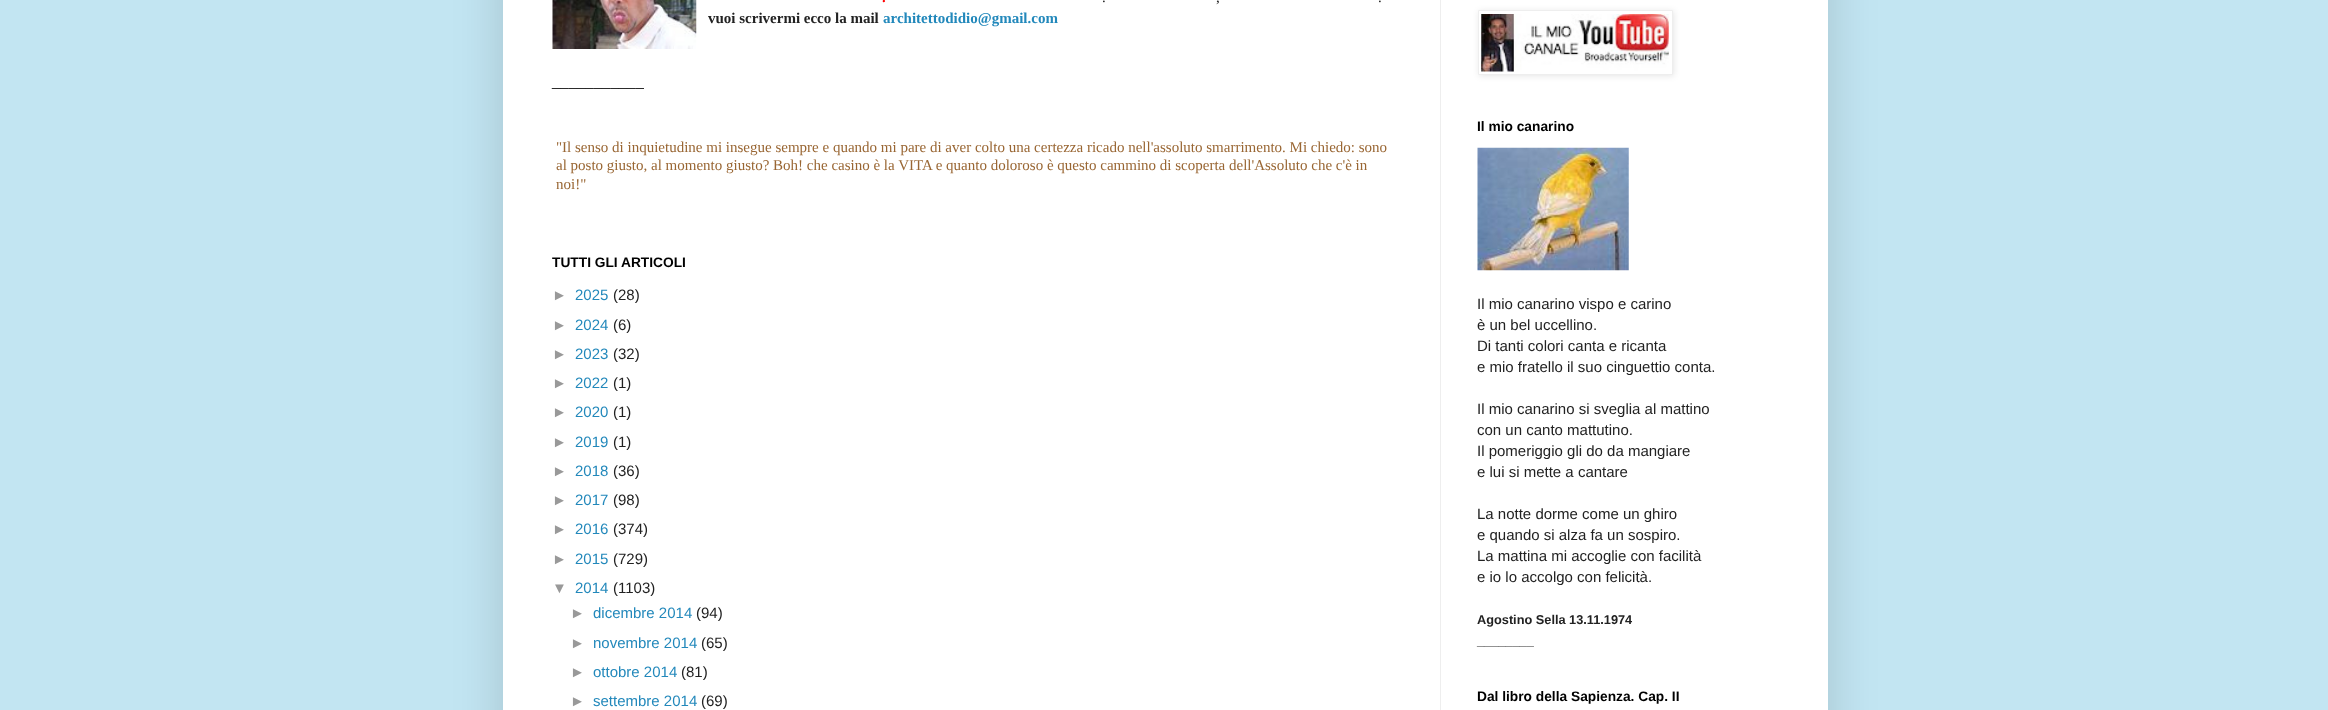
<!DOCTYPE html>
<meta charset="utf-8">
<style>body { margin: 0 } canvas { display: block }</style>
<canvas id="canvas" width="2328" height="710"></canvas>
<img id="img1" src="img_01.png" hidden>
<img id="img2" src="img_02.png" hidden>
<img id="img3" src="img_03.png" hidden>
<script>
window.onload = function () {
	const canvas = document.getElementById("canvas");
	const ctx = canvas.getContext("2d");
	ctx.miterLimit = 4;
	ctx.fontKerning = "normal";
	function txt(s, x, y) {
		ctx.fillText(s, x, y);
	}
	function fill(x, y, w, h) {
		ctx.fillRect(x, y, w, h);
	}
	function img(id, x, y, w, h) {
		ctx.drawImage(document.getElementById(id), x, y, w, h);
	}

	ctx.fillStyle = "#C2E5F2";
	fill(0, 0, 2328, 710);
	ctx.fillStyle = "rgba(0, 0, 0, 0.15)";
	ctx.filter = "blur(25px)";
	ctx.beginPath();
	ctx.rect(503, -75, 1325, 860);
	ctx.fill();
	ctx.filter = "none";
	ctx.fillStyle = "#FFFFFF";
	fill(503, 0, 1325, 710);
	img("img1", 552, 0, 145, 49);
	ctx.fillStyle = "rgba(0, 0, 0, 0.1)";
	ctx.filter = "blur(3px)";
	ctx.beginPath();
	ctx.rect(1479, 11, 195, 65);
	ctx.fill();
	ctx.filter = "none";
	ctx.fillStyle = "#FFFFFF";
	ctx.beginPath();
	ctx.rect(1478.5, 10.5, 194, 64);
	ctx.fill();
	ctx.strokeStyle = "#EEEEEE";
	ctx.stroke();
	img("img2", 1481, 14, 188, 58);
	img("img3", 1477, 147, 152, 124);
	ctx.fillStyle = "#EEEEEE";
	fill(1440, 0, 1, 710);
	ctx.wordSpacing = "1px";
	ctx.font = "bold 15px Liberation Serif";
	ctx.fillStyle = "#FF0000";
	txt(".", 882, 2);
	ctx.font = "15px Liberation Serif";
	ctx.fillStyle = "#222222";
	txt(".", 1102, 2);
	txt(",", 1216, 2);
	txt(".", 1378, 2);
	ctx.wordSpacing = "0px";
	ctx.font = "bold 15px Liberation Serif";
	txt("vuoi scrivermi ecco la mail", 708, 23);
	ctx.fillStyle = "#2288BB";
	txt("architettodidio@gmail.com", 883, 23);
	ctx.font = "15px Liberation Sans";
	ctx.fillStyle = "#222222";
	txt("___________", 552, 86);
	ctx.font = "15px Liberation Serif";
	ctx.fillStyle = "#996633";
	txt("\"Il senso di inquietudine mi insegue sempre e quando mi pare di aver colto una certezza ricado nell'assoluto smarrimento. Mi chiedo: sono", 556, 152);
	txt("al posto giusto, al momento giusto? Boh! che casino è la VITA e quanto doloroso è questo cammino di scoperta dell'Assoluto che c'è in", 556, 170);
	txt("noi!\"", 556, 189);
	ctx.font = "bold 13.75px Liberation Sans";
	ctx.fillStyle = "#000000";
	txt("TUTTI GLI ARTICOLI", 552, 267);
	ctx.font = "15px Liberation Sans";
	ctx.fillStyle = "#999999";
	txt("►", 552, 300);
	ctx.fillStyle = "#2288BB";
	txt("2025", 575, 300);
	ctx.fillStyle = "#222222";
	txt("(28)", 613, 300);
	ctx.fillStyle = "#999999";
	txt("►", 552, 330);
	ctx.fillStyle = "#2288BB";
	txt("2024", 575, 330);
	ctx.fillStyle = "#222222";
	txt("(6)", 613, 330);
	ctx.fillStyle = "#999999";
	txt("►", 552, 359);
	ctx.fillStyle = "#2288BB";
	txt("2023", 575, 359);
	ctx.fillStyle = "#222222";
	txt("(32)", 613, 359);
	ctx.fillStyle = "#999999";
	txt("►", 552, 388);
	ctx.fillStyle = "#2288BB";
	txt("2022", 575, 388);
	ctx.fillStyle = "#222222";
	txt("(1)", 613, 388);
	ctx.fillStyle = "#999999";
	txt("►", 552, 417);
	ctx.fillStyle = "#2288BB";
	txt("2020", 575, 417);
	ctx.fillStyle = "#222222";
	txt("(1)", 613, 417);
	ctx.fillStyle = "#999999";
	txt("►", 552, 447);
	ctx.fillStyle = "#2288BB";
	txt("2019", 575, 447);
	ctx.fillStyle = "#222222";
	txt("(1)", 613, 447);
	ctx.fillStyle = "#999999";
	txt("►", 552, 476);
	ctx.fillStyle = "#2288BB";
	txt("2018", 575, 476);
	ctx.fillStyle = "#222222";
	txt("(36)", 613, 476);
	ctx.fillStyle = "#999999";
	txt("►", 552, 505);
	ctx.fillStyle = "#2288BB";
	txt("2017", 575, 505);
	ctx.fillStyle = "#222222";
	txt("(98)", 613, 505);
	ctx.fillStyle = "#999999";
	txt("►", 552, 534);
	ctx.fillStyle = "#2288BB";
	txt("2016", 575, 534);
	ctx.fillStyle = "#222222";
	txt("(374)", 613, 534);
	ctx.fillStyle = "#999999";
	txt("►", 552, 564);
	ctx.fillStyle = "#2288BB";
	txt("2015", 575, 564);
	ctx.fillStyle = "#222222";
	txt("(729)", 613, 564);
	ctx.fillStyle = "#999999";
	txt("▼", 552, 593);
	ctx.fillStyle = "#2288BB";
	txt("2014", 575, 593);
	ctx.fillStyle = "#222222";
	txt("(1103)", 613, 593);
	ctx.fillStyle = "#999999";
	txt("►", 570, 618);
	ctx.fillStyle = "#2288BB";
	txt("dicembre 2014", 593, 618);
	ctx.fillStyle = "#222222";
	txt("(94)", 696, 618);
	ctx.fillStyle = "#999999";
	txt("►", 570, 648);
	ctx.fillStyle = "#2288BB";
	txt("novembre 2014", 593, 648);
	ctx.fillStyle = "#222222";
	txt("(65)", 701, 648);
	ctx.fillStyle = "#999999";
	txt("►", 570, 677);
	ctx.fillStyle = "#2288BB";
	txt("ottobre 2014", 593, 677);
	ctx.fillStyle = "#222222";
	txt("(81)", 681, 677);
	ctx.fillStyle = "#999999";
	txt("►", 570, 706);
	ctx.fillStyle = "#2288BB";
	txt("settembre 2014", 593, 706);
	ctx.fillStyle = "#222222";
	txt("(69)", 701, 706);
	ctx.font = "bold 13.75px Liberation Sans";
	ctx.fillStyle = "#000000";
	txt("Il mio canarino", 1477, 131);
	ctx.font = "15px Liberation Sans";
	ctx.fillStyle = "#222222";
	txt("Il mio canarino vispo e carino", 1477, 309);
	txt("è un bel uccellino.", 1477, 330);
	txt("Di tanti colori canta e ricanta", 1477, 351);
	txt("e mio fratello il suo cinguettio conta.", 1477, 372);
	txt("Il mio canarino si sveglia al mattino", 1477, 414);
	txt("con un canto mattutino.", 1477, 435);
	txt("Il pomeriggio gli do da mangiare", 1477, 456);
	txt("e lui si mette a cantare", 1477, 477);
	txt("La notte dorme come un ghiro", 1477, 519);
	txt("e quando si alza fa un sospiro.", 1477, 540);
	txt("La mattina mi accoglie con facilità", 1477, 561);
	txt("e io lo accolgo con felicità.", 1477, 582);
	ctx.font = "bold 12.75px Liberation Sans";
	txt("Agostino Sella 13.11.1974", 1477, 624);
	txt("________", 1477, 645);
	ctx.font = "bold 13.75px Liberation Sans";
	ctx.fillStyle = "#000000";
	txt("Dal libro della Sapienza. Cap. II", 1477, 701);
};
</script>
